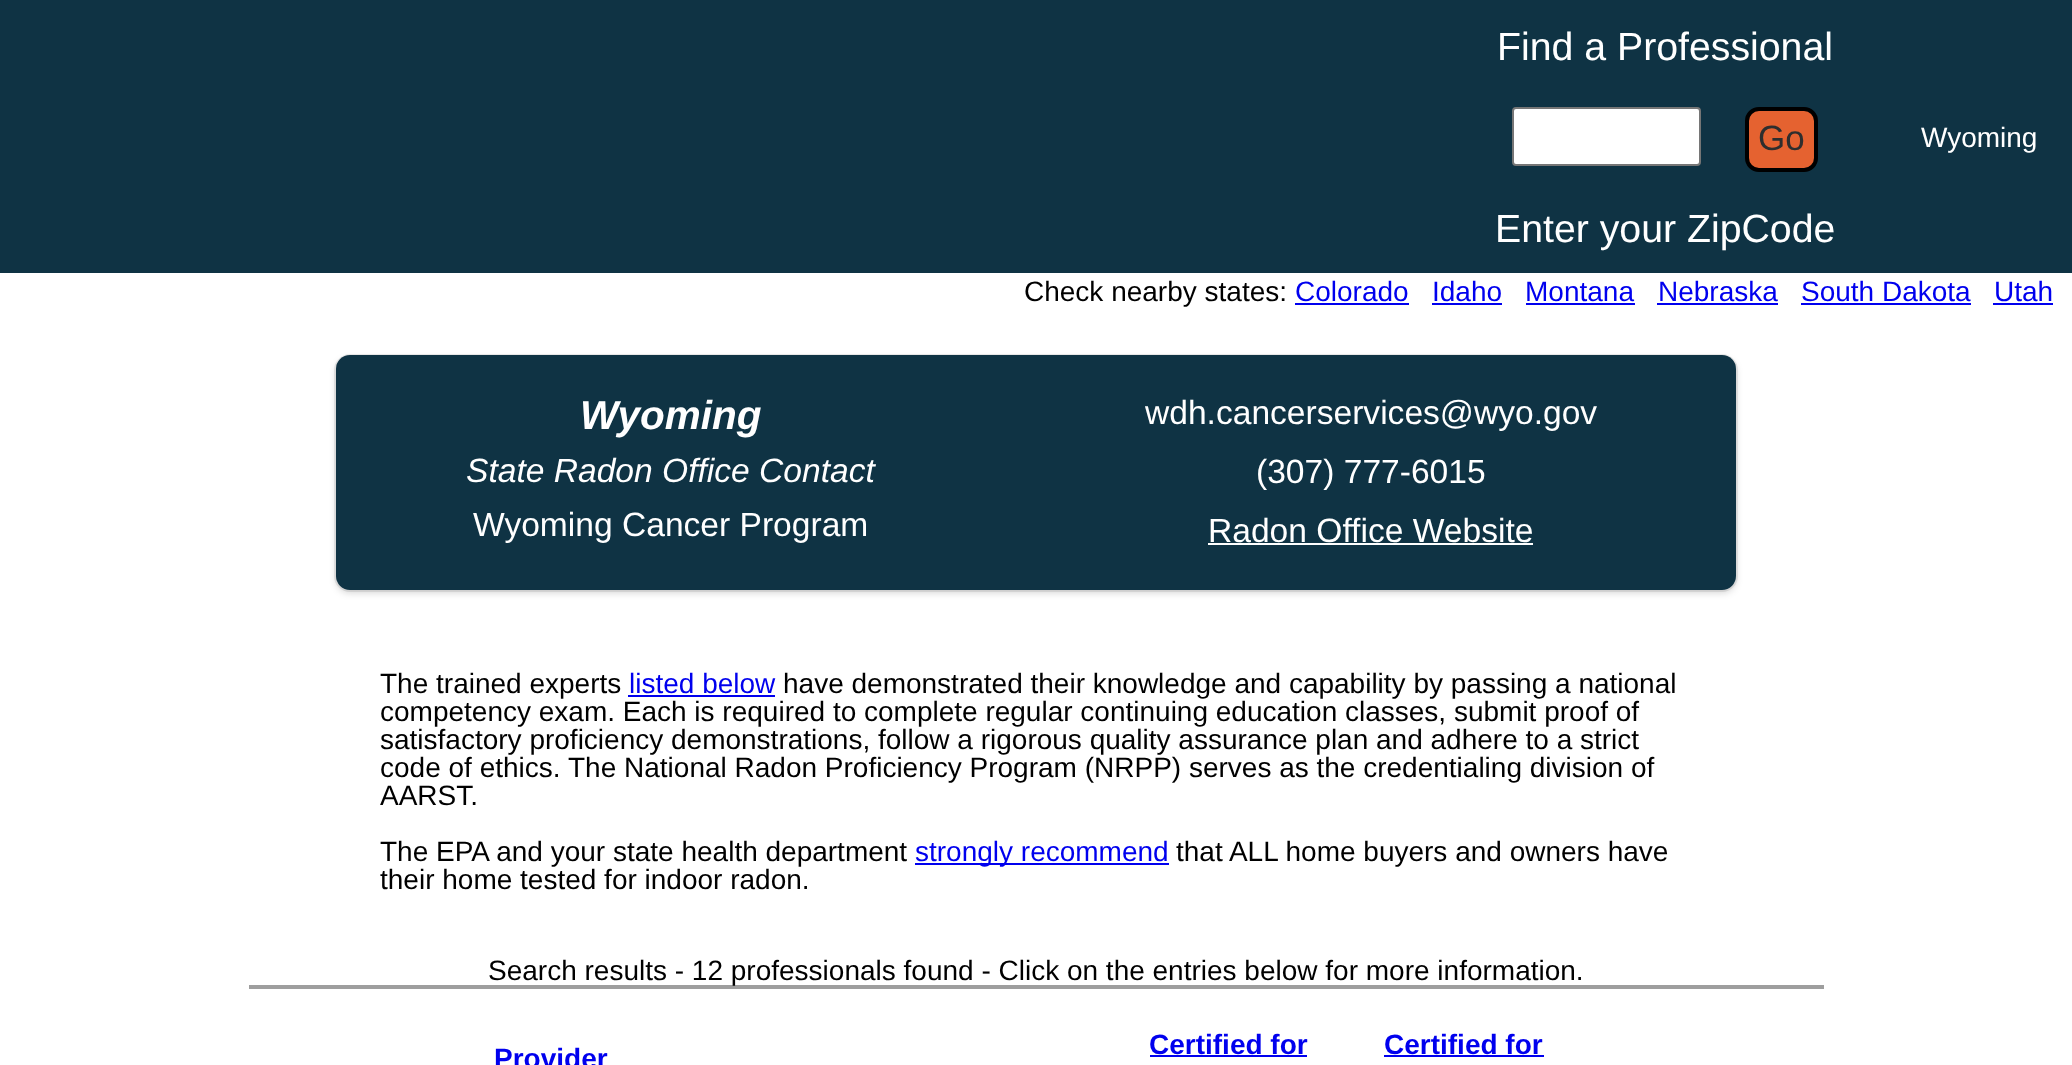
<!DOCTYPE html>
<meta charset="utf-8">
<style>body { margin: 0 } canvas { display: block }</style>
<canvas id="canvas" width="2072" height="1065"></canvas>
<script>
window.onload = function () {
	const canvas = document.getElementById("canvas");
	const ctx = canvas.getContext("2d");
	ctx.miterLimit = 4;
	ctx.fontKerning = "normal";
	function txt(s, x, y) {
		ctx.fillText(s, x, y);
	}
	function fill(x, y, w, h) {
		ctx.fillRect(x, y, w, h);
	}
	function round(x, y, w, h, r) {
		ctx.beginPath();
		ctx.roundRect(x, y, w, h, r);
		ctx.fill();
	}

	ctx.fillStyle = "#0F3344";
	fill(0, 0, 2072, 1065);
	ctx.fillStyle = "#FFFFFF";
	ctx.beginPath();
	ctx.roundRect(1513, 108, 187, 57, 3);
	ctx.fill();
	ctx.strokeStyle = "#767676";
	ctx.lineWidth = 2;
	ctx.stroke();
	ctx.fillStyle = "#E56230";
	ctx.beginPath();
	ctx.roundRect(1747, 109, 69, 61, 12);
	ctx.fill();
	ctx.strokeStyle = "#000000";
	ctx.lineWidth = 4;
	ctx.stroke();
	ctx.fillStyle = "#FFFFFF";
	fill(0, 273, 2072, 792);
	ctx.fillStyle = "#0000EE";
	fill(1295, 303, 114, 2);
	fill(1432, 303, 70, 2);
	fill(1526, 303, 109, 2);
	fill(1657, 303, 121, 2);
	fill(1801, 303, 170, 2);
	fill(1993, 303, 60, 2);
	ctx.beginPath();
	ctx.roundRect(335, 355, 1402, 236, 15);
	ctx.strokeStyle = "#EBEBEB";
	ctx.lineWidth = 2;
	ctx.stroke();
	ctx.fillStyle = "rgba(0, 0, 0, 0.16)";
	ctx.filter = "blur(3.5px)";
	ctx.beginPath();
	ctx.roundRect(336, 359, 1400, 234, 14);
	ctx.fill();
	ctx.filter = "none";
	ctx.fillStyle = "#0F3344";
	round(336, 355, 1400, 235, 14);
	ctx.fillStyle = "#FFFFFF";
	fill(1208, 543, 325, 2);
	ctx.fillStyle = "#0000EE";
	fill(628, 695, 147, 2);
	fill(915, 863, 254, 2);
	ctx.fillStyle = "#9E9E9E";
	fill(249, 985, 1575, 4);
	ctx.fillStyle = "#0000EE";
	fill(1150, 1055, 157, 2);
	fill(1384, 1055, 160, 2);
	ctx.font = "39.25px Liberation Sans";
	ctx.fillStyle = "#FFFFFF";
	txt("Find a Professional", 1497, 60);
	ctx.font = "35px Liberation Sans";
	ctx.fillStyle = "#2E2E2E";
	txt("Go", 1758, 150);
	ctx.font = "39.25px Liberation Sans";
	ctx.fillStyle = "#FFFFFF";
	txt("Enter your ZipCode", 1495, 242);
	ctx.font = "28px Liberation Sans";
	txt("Wyoming", 1921, 147);
	ctx.fillStyle = "#000000";
	txt("Check nearby states:", 1024, 301);
	ctx.fillStyle = "#0000EE";
	txt("Colorado", 1295, 301);
	txt("Idaho", 1432, 301);
	txt("Montana", 1525, 301);
	txt("Nebraska", 1658, 301);
	txt("South Dakota", 1801, 301);
	txt("Utah", 1994, 301);
	ctx.font = "italic bold 40.5px Liberation Sans";
	ctx.fillStyle = "#FFFFFF";
	txt("Wyoming", 580, 429);
	ctx.font = "italic 33.6px Liberation Sans";
	txt("State Radon Office Contact", 466, 482);
	ctx.font = "33.6px Liberation Sans";
	txt("Wyoming Cancer Program", 473, 536);
	txt("wdh.cancerservices@wyo.gov", 1145, 424);
	txt("(307) 777-6015", 1256, 483);
	txt("Radon Office Website", 1208, 542);
	ctx.font = "28px Liberation Sans";
	ctx.fillStyle = "#000000";
	txt("The trained experts", 380, 693);
	ctx.fillStyle = "#0000EE";
	txt("listed below", 629, 693);
	ctx.fillStyle = "#000000";
	txt("have demonstrated their knowledge and capability by passing a national", 783, 693);
	txt("competency exam. Each is required to complete regular continuing education classes, submit proof of", 380, 721);
	txt("satisfactory proficiency demonstrations, follow a rigorous quality assurance plan and adhere to a strict", 380, 749);
	txt("code of ethics.", 380, 777);
	txt("The National Radon Proficiency Program (NRPP) serves as the credentialing division of", 568, 777);
	txt("AARST.", 380, 805);
	txt("The EPA and your state health department", 380, 861);
	ctx.fillStyle = "#0000EE";
	txt("strongly recommend", 915, 861);
	ctx.fillStyle = "#000000";
	txt("that ALL home buyers and owners have", 1176, 861);
	txt("their home tested for indoor radon.", 380, 889);
	txt("Search results - 12 professionals found - Click on the entries below for more information.", 488, 980);
	ctx.font = "bold 28px Liberation Sans";
	ctx.fillStyle = "#0000EE";
	txt("Provider", 494, 1068);
	txt("Certified for", 1149, 1054);
	txt("Certified for", 1384, 1054);
};
</script>
